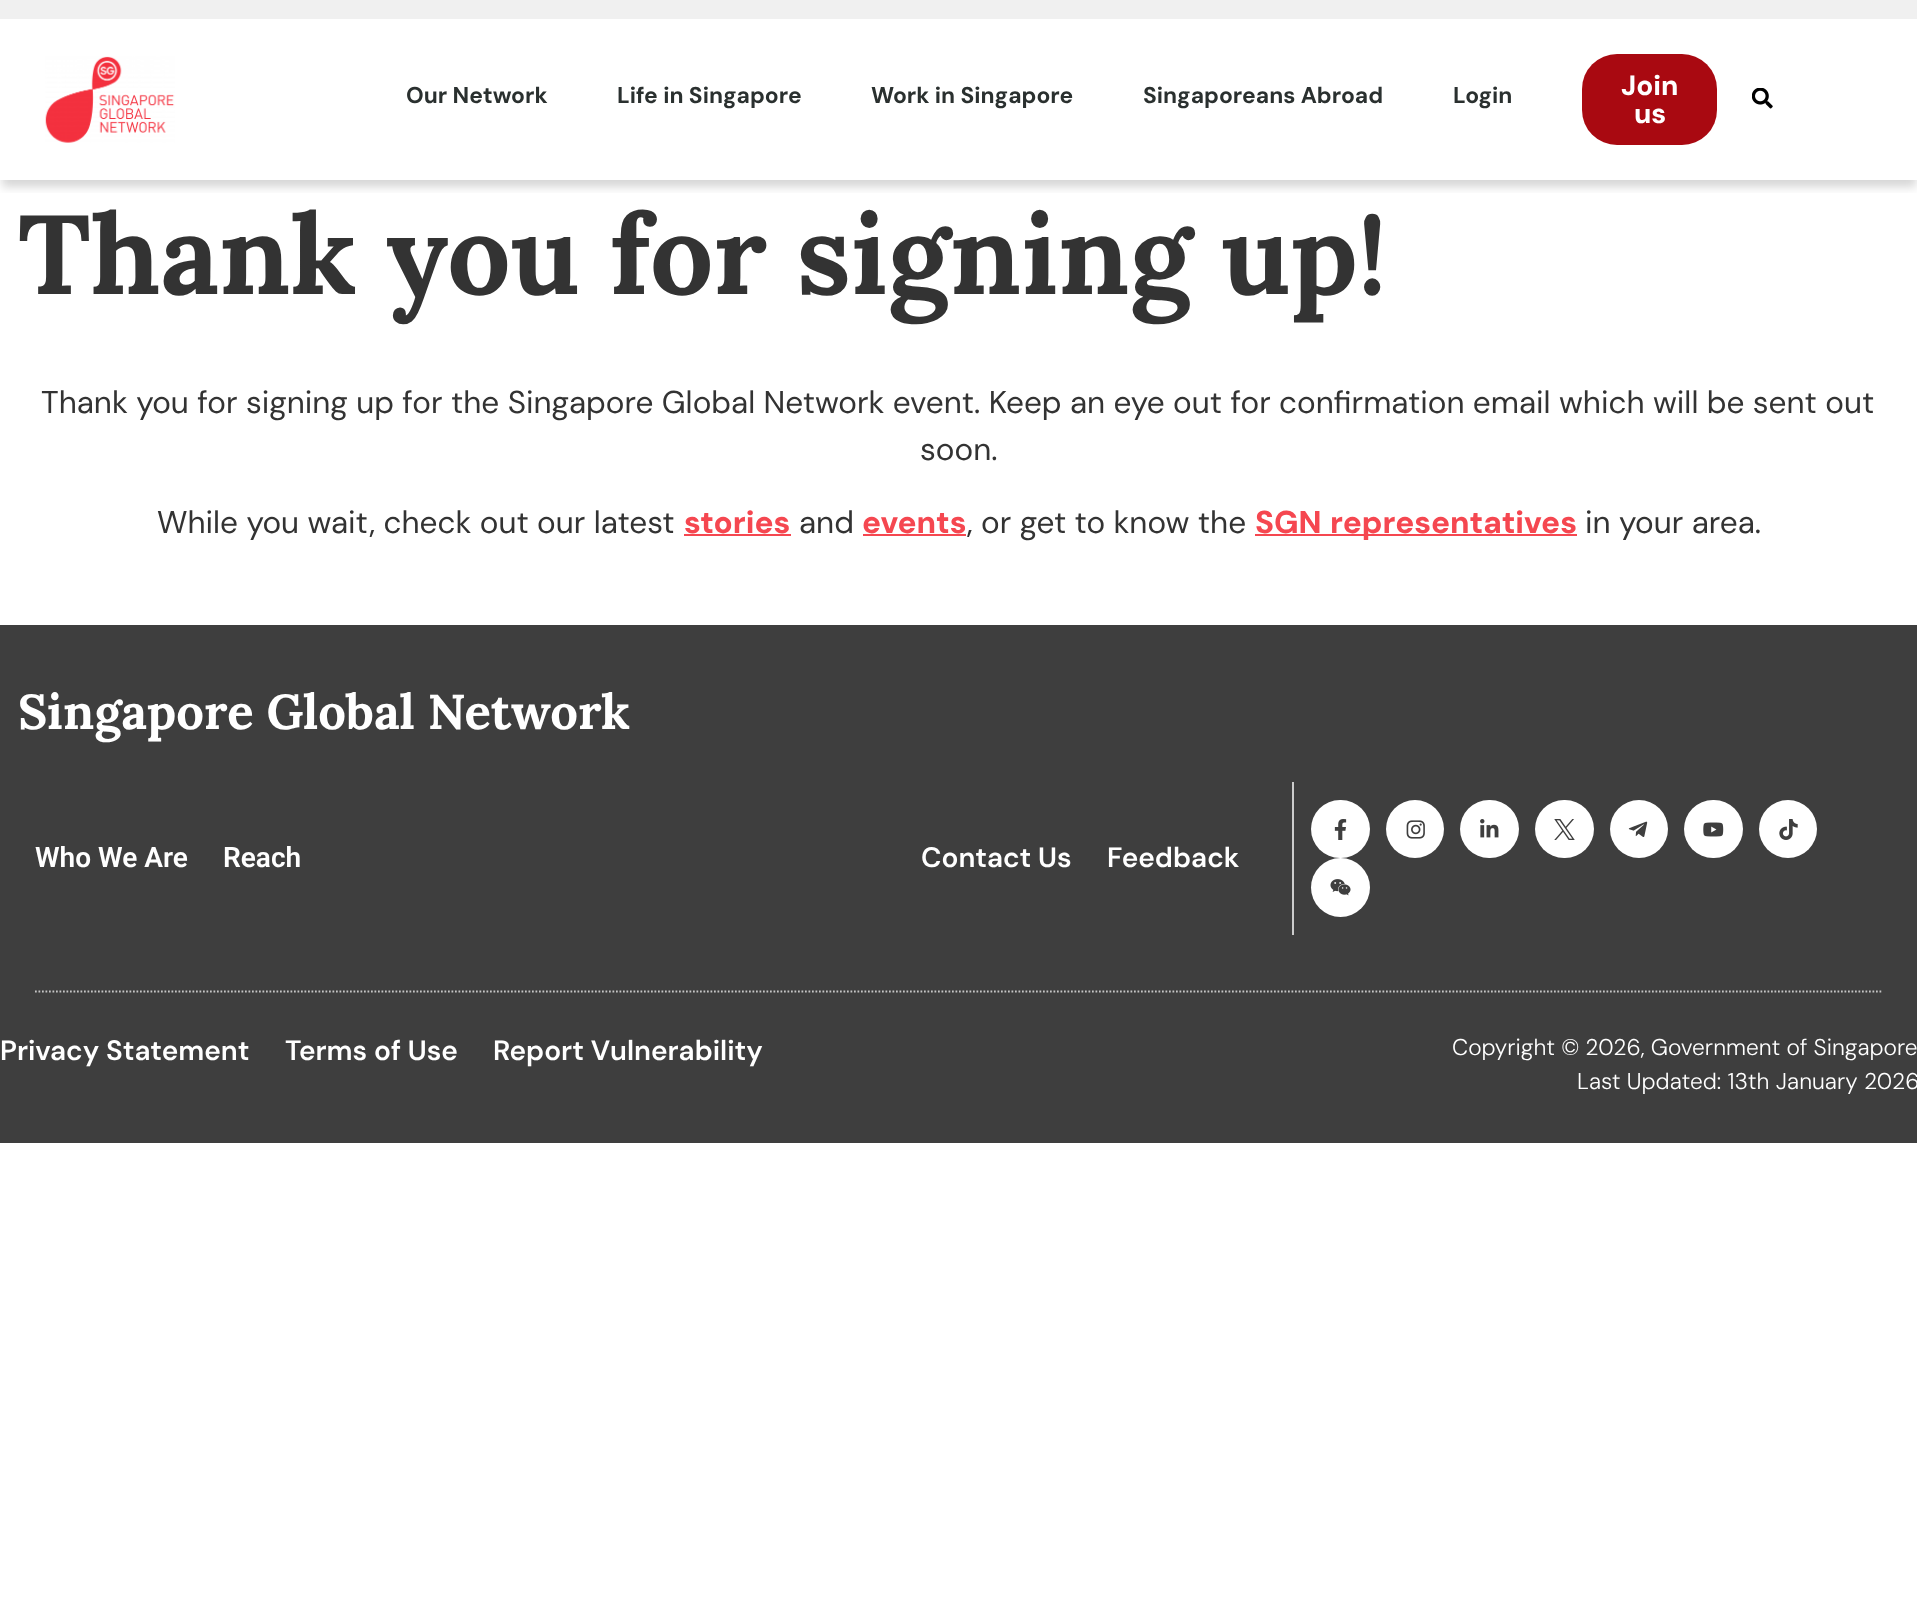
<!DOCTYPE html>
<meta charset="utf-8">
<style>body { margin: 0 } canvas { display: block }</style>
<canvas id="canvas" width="1917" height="1598"></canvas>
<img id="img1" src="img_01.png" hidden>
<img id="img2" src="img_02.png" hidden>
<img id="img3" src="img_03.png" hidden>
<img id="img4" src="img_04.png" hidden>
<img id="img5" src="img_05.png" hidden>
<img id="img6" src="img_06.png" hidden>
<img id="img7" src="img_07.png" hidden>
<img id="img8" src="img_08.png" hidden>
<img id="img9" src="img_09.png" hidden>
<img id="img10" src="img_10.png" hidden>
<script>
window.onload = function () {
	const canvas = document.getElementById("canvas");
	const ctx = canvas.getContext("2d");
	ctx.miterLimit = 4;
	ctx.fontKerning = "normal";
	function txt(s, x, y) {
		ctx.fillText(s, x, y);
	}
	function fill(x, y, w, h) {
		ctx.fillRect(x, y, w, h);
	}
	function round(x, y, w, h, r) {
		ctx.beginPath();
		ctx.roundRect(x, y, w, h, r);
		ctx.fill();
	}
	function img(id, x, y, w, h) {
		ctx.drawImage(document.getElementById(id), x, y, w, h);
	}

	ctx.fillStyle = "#FFFFFF";
	fill(0, 0, 1917, 1598);
	ctx.fillStyle = "#F0F0F0";
	fill(0, 0, 1917, 19);
	ctx.save();
	ctx.beginPath();
	ctx.rect(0, 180, 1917, 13);
	ctx.clip();
	ctx.fillStyle = "rgba(0, 0, 0, 0.16)";
	ctx.filter = "blur(5px)";
	ctx.beginPath();
	ctx.rect(2, 30, 1914, 157);
	ctx.fill();
	ctx.filter = "none";
	ctx.restore();
	img("img1", 45, 56, 130, 87);
	ctx.fillStyle = "#A90911";
	round(1582, 54, 135, 91, 35);
	img("img2", 1752, 88, 21, 21);
	ctx.fillStyle = "#F54750";
	fill(684, 534, 107, 2);
	fill(863, 534, 103, 2);
	fill(1255, 534, 322, 2);
	ctx.fillStyle = "#3E3E3E";
	fill(0, 625, 1917, 518);
	ctx.fillStyle = "#CCCCCC";
	fill(1292, 782, 2, 153);
	ctx.fillStyle = "#FFFFFF";
	round(1311, 800, 59, 58, 29);
	img("img3", 1334, 819, 13, 21);
	ctx.beginPath();
	ctx.arc(1415, 829, 29, 0, Math.PI * 2);
	ctx.fill();
	img("img4", 1406, 820, 19, 19);
	round(1460, 800, 59, 58, 29);
	img("img5", 1480, 819, 19, 19);
	round(1535, 800, 59, 58, 29);
	img("img6", 1554, 819, 21, 21);
	ctx.beginPath();
	ctx.arc(1639, 829, 29, 0, Math.PI * 2);
	ctx.fill();
	img("img7", 1628, 821, 20, 16);
	round(1684, 800, 59, 58, 29);
	img("img8", 1703, 822, 21, 15);
	ctx.beginPath();
	ctx.arc(1788, 829, 29, 0, Math.PI * 2);
	ctx.fill();
	img("img9", 1779, 819, 19, 21);
	ctx.beginPath();
	ctx.arc(1340.5, 887.5, 29.5, 0, Math.PI * 2);
	ctx.fill();
	img("img10", 1330, 879, 21, 17);
	ctx.beginPath();
	ctx.moveTo(35, 991.5);
	ctx.lineTo(1883, 991.5);
	ctx.strokeStyle = "#C5C5C5";
	ctx.lineWidth = 1.8;
	ctx.setLineDash([1.75, 1.75]);
	ctx.stroke();
	ctx.font = "bold 22.75px DM Sans";
	ctx.fillStyle = "#2A302F";
	txt("Our Network", 406, 103);
	txt("Life in Singapore", 617, 103);
	txt("Work in Singapore", 871, 103);
	txt("Singaporeans Abroad", 1143, 103);
	txt("Login", 1453, 103);
	ctx.font = "800 28px 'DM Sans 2'";
	ctx.fillStyle = "#FFFFFF";
	txt("Join", 1621, 95);
	txt("us", 1634, 123);
	ctx.font = "bold 112px Lora";
	ctx.fillStyle = "#333333";
	txt("Thank you for signing up!", 18, 294);
	ctx.font = "31.5px DM Sans";
	txt("Thank you for signing up for the Singapore Global Network event. Keep an eye out for confirmation email which will be sent out", 41, 413);
	txt("soon.", 920, 460);
	txt("While you wait, check out our latest", 157, 533);
	ctx.font = "800 31.5px DM Sans";
	ctx.fillStyle = "#F54750";
	txt("stories", 684, 533);
	ctx.font = "31.5px DM Sans";
	ctx.fillStyle = "#333333";
	txt("and", 799, 533);
	ctx.font = "800 31.5px DM Sans";
	ctx.fillStyle = "#F54750";
	txt("events", 862, 533);
	ctx.font = "31.5px DM Sans";
	ctx.fillStyle = "#333333";
	txt(", or get to know the", 967, 533);
	ctx.wordSpacing = "1px";
	ctx.font = "800 31.5px DM Sans";
	ctx.fillStyle = "#F54750";
	txt("SGN representatives", 1255, 533);
	ctx.wordSpacing = "0px";
	ctx.font = "31.5px DM Sans";
	ctx.fillStyle = "#333333";
	txt("in your area.", 1585, 533);
	ctx.font = "bold 49px Lora";
	ctx.fillStyle = "#FFFFFF";
	txt("Singapore Global Network", 18, 729);
	ctx.font = "600 28px Roboto";
	txt("Who We Are", 35, 867);
	txt("Reach", 223, 867);
	ctx.font = "600 28px DM Sans";
	txt("Contact Us", 921, 867);
	txt("Feedback", 1107, 867);
	txt("Privacy Statement", 0, 1060);
	txt("Terms of Use", 285, 1060);
	txt("Report Vulnerability", 493, 1060);
	ctx.wordSpacing = "-0.25px";
	ctx.font = "300 22.75px DM Sans";
	txt("Copyright © 2026, Government of Singapore", 1452, 1055);
	ctx.wordSpacing = "0px";
	txt("Last Updated: 13th January 2026", 1577, 1089);
};
</script>
